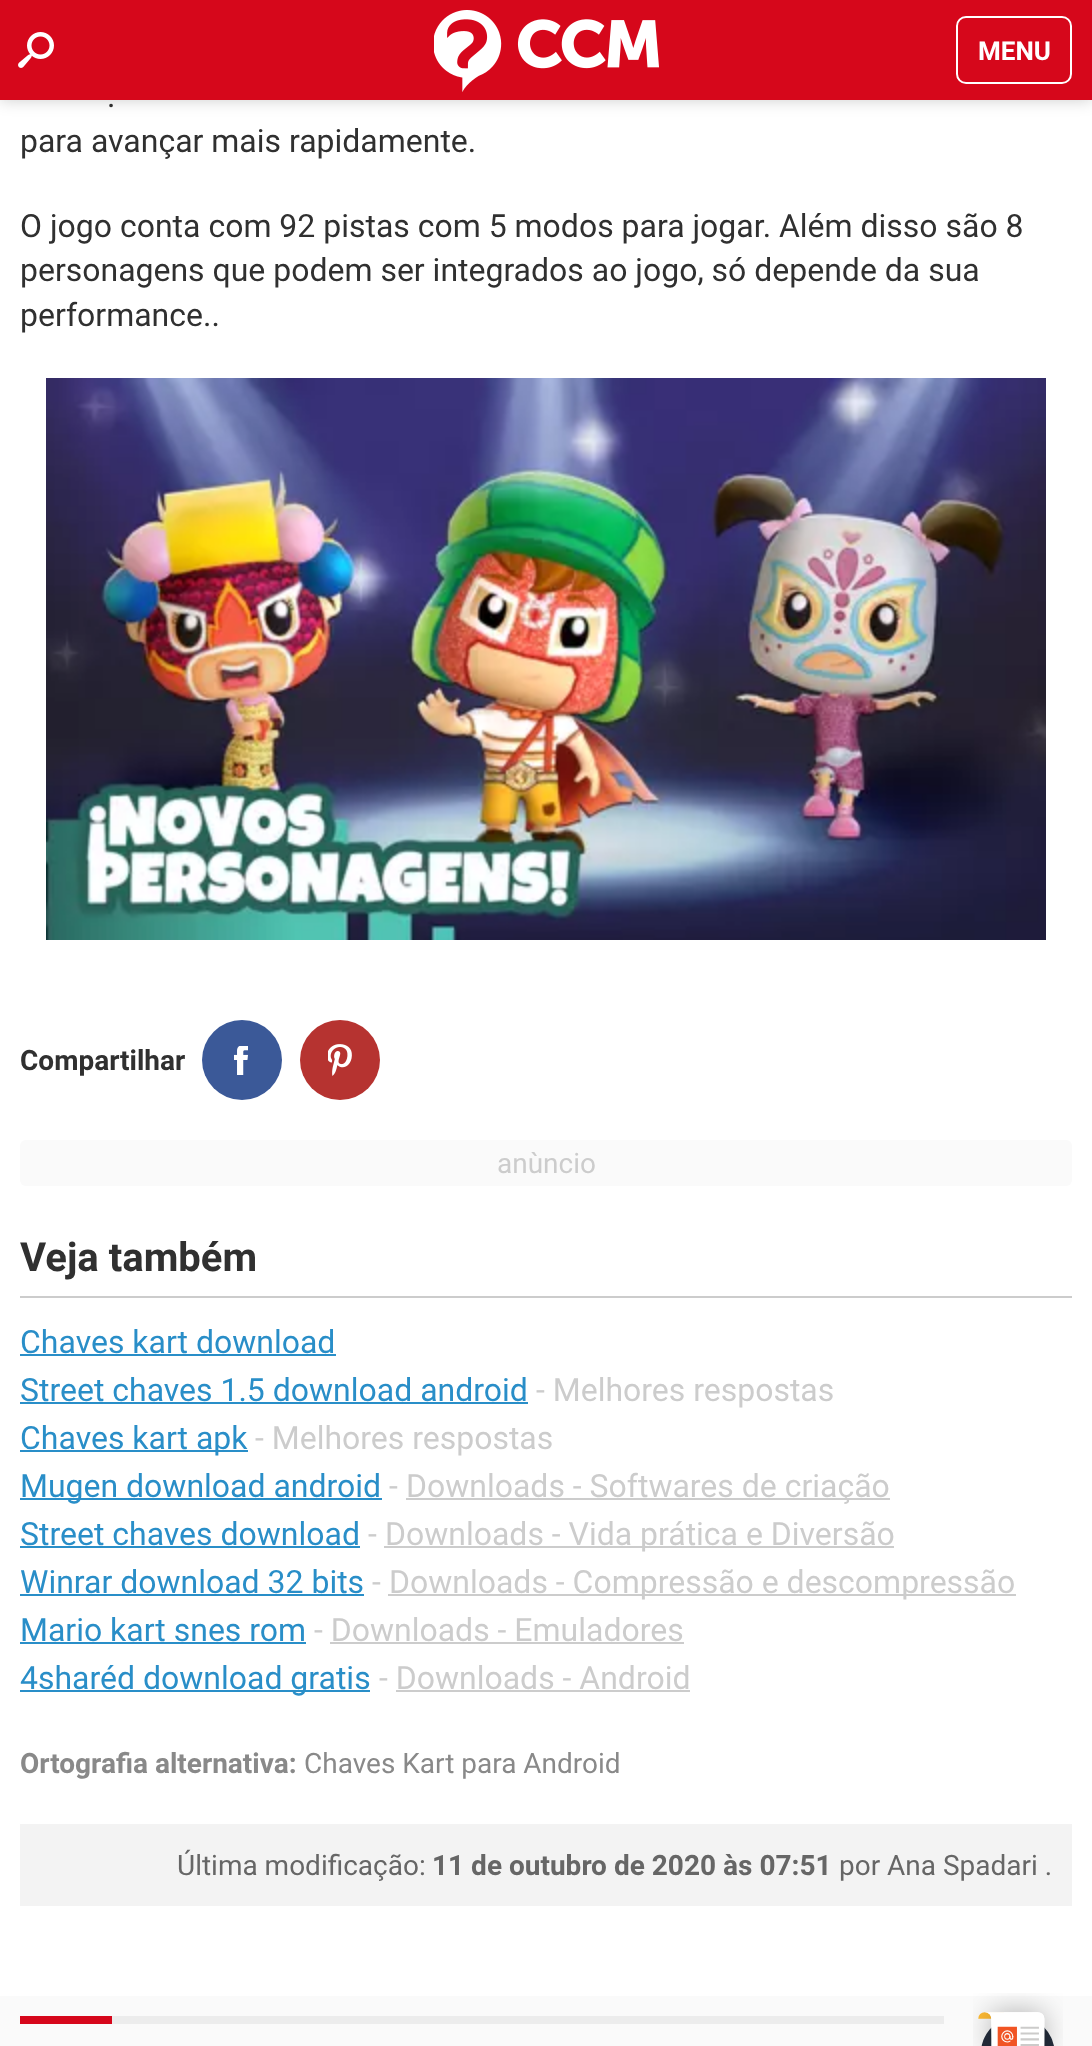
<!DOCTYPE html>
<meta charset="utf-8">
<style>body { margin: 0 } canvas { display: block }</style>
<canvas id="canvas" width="1092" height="2046"></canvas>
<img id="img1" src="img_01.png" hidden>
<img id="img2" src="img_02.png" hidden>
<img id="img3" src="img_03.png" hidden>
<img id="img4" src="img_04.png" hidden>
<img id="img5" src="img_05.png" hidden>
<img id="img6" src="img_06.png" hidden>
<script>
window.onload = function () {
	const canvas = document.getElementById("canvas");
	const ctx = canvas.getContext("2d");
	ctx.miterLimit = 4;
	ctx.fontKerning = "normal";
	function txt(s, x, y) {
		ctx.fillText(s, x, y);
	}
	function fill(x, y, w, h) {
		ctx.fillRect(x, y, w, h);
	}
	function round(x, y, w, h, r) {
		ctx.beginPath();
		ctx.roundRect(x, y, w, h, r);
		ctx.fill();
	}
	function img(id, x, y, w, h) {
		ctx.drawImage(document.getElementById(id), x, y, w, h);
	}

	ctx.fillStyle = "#FFFFFF";
	fill(0, 0, 1092, 2046);
	ctx.fillStyle = "rgba(0, 0, 0, 0.2)";
	ctx.filter = "blur(8px)";
	ctx.beginPath();
	ctx.rect(0, 0, 1092, 100);
	ctx.fill();
	ctx.filter = "none";
	ctx.fillStyle = "#D6071B";
	fill(0, 0, 1092, 100);
	img("img1", 18, 32, 36, 36);
	img("img2", 434, 10, 225, 82);
	ctx.beginPath();
	ctx.roundRect(957, 17, 114, 66, 9);
	ctx.strokeStyle = "#FFFFFF";
	ctx.lineWidth = 2;
	ctx.stroke();
	img("img3", 46, 378, 1000, 562);
	ctx.fillStyle = "#3B5998";
	ctx.beginPath();
	ctx.arc(242, 1060, 40, 0, Math.PI * 2);
	ctx.fill();
	img("img4", 234, 1046, 14, 29);
	ctx.fillStyle = "#B63330";
	ctx.beginPath();
	ctx.arc(340, 1060, 40, 0, Math.PI * 2);
	ctx.fill();
	img("img5", 328, 1044, 24, 32);
	ctx.fillStyle = "#FAFAFA";
	round(20, 1140, 1052, 46, 6);
	ctx.fillStyle = "#CCCCCC";
	fill(20, 1296, 1052, 2);
	ctx.fillStyle = "#298EC8";
	fill(20, 1354, 316, 2);
	fill(20, 1402, 508, 2);
	fill(20, 1450, 228, 2);
	fill(20, 1498, 362, 2);
	ctx.fillStyle = "#CCCCCC";
	fill(406, 1498, 484, 2);
	ctx.fillStyle = "#298EC8";
	fill(20, 1546, 340, 2);
	ctx.fillStyle = "#CCCCCC";
	fill(384, 1546, 510, 2);
	ctx.fillStyle = "#298EC8";
	fill(20, 1594, 344, 2);
	ctx.fillStyle = "#CCCCCC";
	fill(388, 1594, 628, 2);
	ctx.fillStyle = "#298EC8";
	fill(20, 1642, 286, 2);
	ctx.fillStyle = "#CCCCCC";
	fill(330, 1642, 354, 2);
	ctx.fillStyle = "#298EC8";
	fill(20, 1690, 350, 2);
	ctx.fillStyle = "#CCCCCC";
	fill(396, 1690, 294, 2);
	ctx.fillStyle = "#F3F3F3";
	fill(20, 1824, 1052, 82);
	ctx.fillStyle = "#FAFAFA";
	fill(0, 1996, 1092, 50);
	ctx.fillStyle = "#ECECEC";
	fill(112, 2016, 832, 8);
	ctx.fillStyle = "#D6071B";
	fill(20, 2016, 92, 8);
	img("img6", 973, 1993, 90, 53);
	ctx.font = "bold 26px Roboto";
	ctx.fillStyle = "#FFFFFF";
	txt("MENU", 978, 60);
	ctx.font = "32px Roboto";
	ctx.fillStyle = "#303030";
	txt(".", 107, 107);
	txt("para avançar mais rapidamente.", 20, 152);
	txt("O jogo conta com 92 pistas com 5 modos para jogar. Além disso são 8", 20, 237);
	txt("personagens que podem ser integrados ao jogo, só depende da sua", 20, 281);
	txt("performance..", 20, 326);
	ctx.font = "bold 28px Roboto";
	txt("Compartilhar", 20, 1070);
	ctx.font = "28px Roboto";
	ctx.fillStyle = "#CCCCCC";
	txt("anùncio", 497, 1173);
	ctx.font = "bold 40px Roboto";
	ctx.fillStyle = "#303030";
	txt("Veja também", 20, 1271);
	ctx.font = "32px Roboto";
	ctx.fillStyle = "#298EC8";
	txt("Chaves kart download", 20, 1353);
	txt("Street chaves 1.5 download android", 20, 1401);
	ctx.fillStyle = "#CCCCCC";
	txt("- Melhores respostas", 536, 1401);
	ctx.fillStyle = "#298EC8";
	txt("Chaves kart apk", 20, 1449);
	ctx.fillStyle = "#CCCCCC";
	txt("- Melhores respostas", 255, 1449);
	ctx.fillStyle = "#298EC8";
	txt("Mugen download android", 20, 1497);
	ctx.fillStyle = "#CCCCCC";
	txt("-", 389, 1497);
	txt("Downloads - Softwares de criação", 406, 1497);
	ctx.fillStyle = "#298EC8";
	txt("Street chaves download", 20, 1545);
	ctx.fillStyle = "#CCCCCC";
	txt("-", 368, 1545);
	txt("Downloads - Vida prática e Diversão", 385, 1545);
	ctx.fillStyle = "#298EC8";
	txt("Winrar download 32 bits", 20, 1593);
	ctx.fillStyle = "#CCCCCC";
	txt("-", 372, 1593);
	txt("Downloads - Compressão e descompressão", 389, 1593);
	ctx.fillStyle = "#298EC8";
	txt("Mario kart snes rom", 20, 1641);
	ctx.fillStyle = "#CCCCCC";
	txt("- Downloads - Emuladores", 314, 1641);
	ctx.fillStyle = "#298EC8";
	txt("4sharéd download gratis", 20, 1689);
	ctx.fillStyle = "#CCCCCC";
	txt("- Downloads - Android", 379, 1689);
	ctx.font = "bold 28px Roboto";
	ctx.fillStyle = "#898989";
	txt("Ortografia alternativa:", 20, 1773);
	ctx.font = "28px Roboto";
	txt("Chaves Kart para Android", 304, 1773);
	ctx.fillStyle = "#666666";
	txt("Última modificação:", 177, 1875);
	ctx.font = "bold 28px Roboto";
	txt("11 de outubro de 2020 às 07:51", 432, 1875);
	ctx.font = "28px Roboto";
	txt("por Ana Spadari .", 839, 1875);
};
</script>
